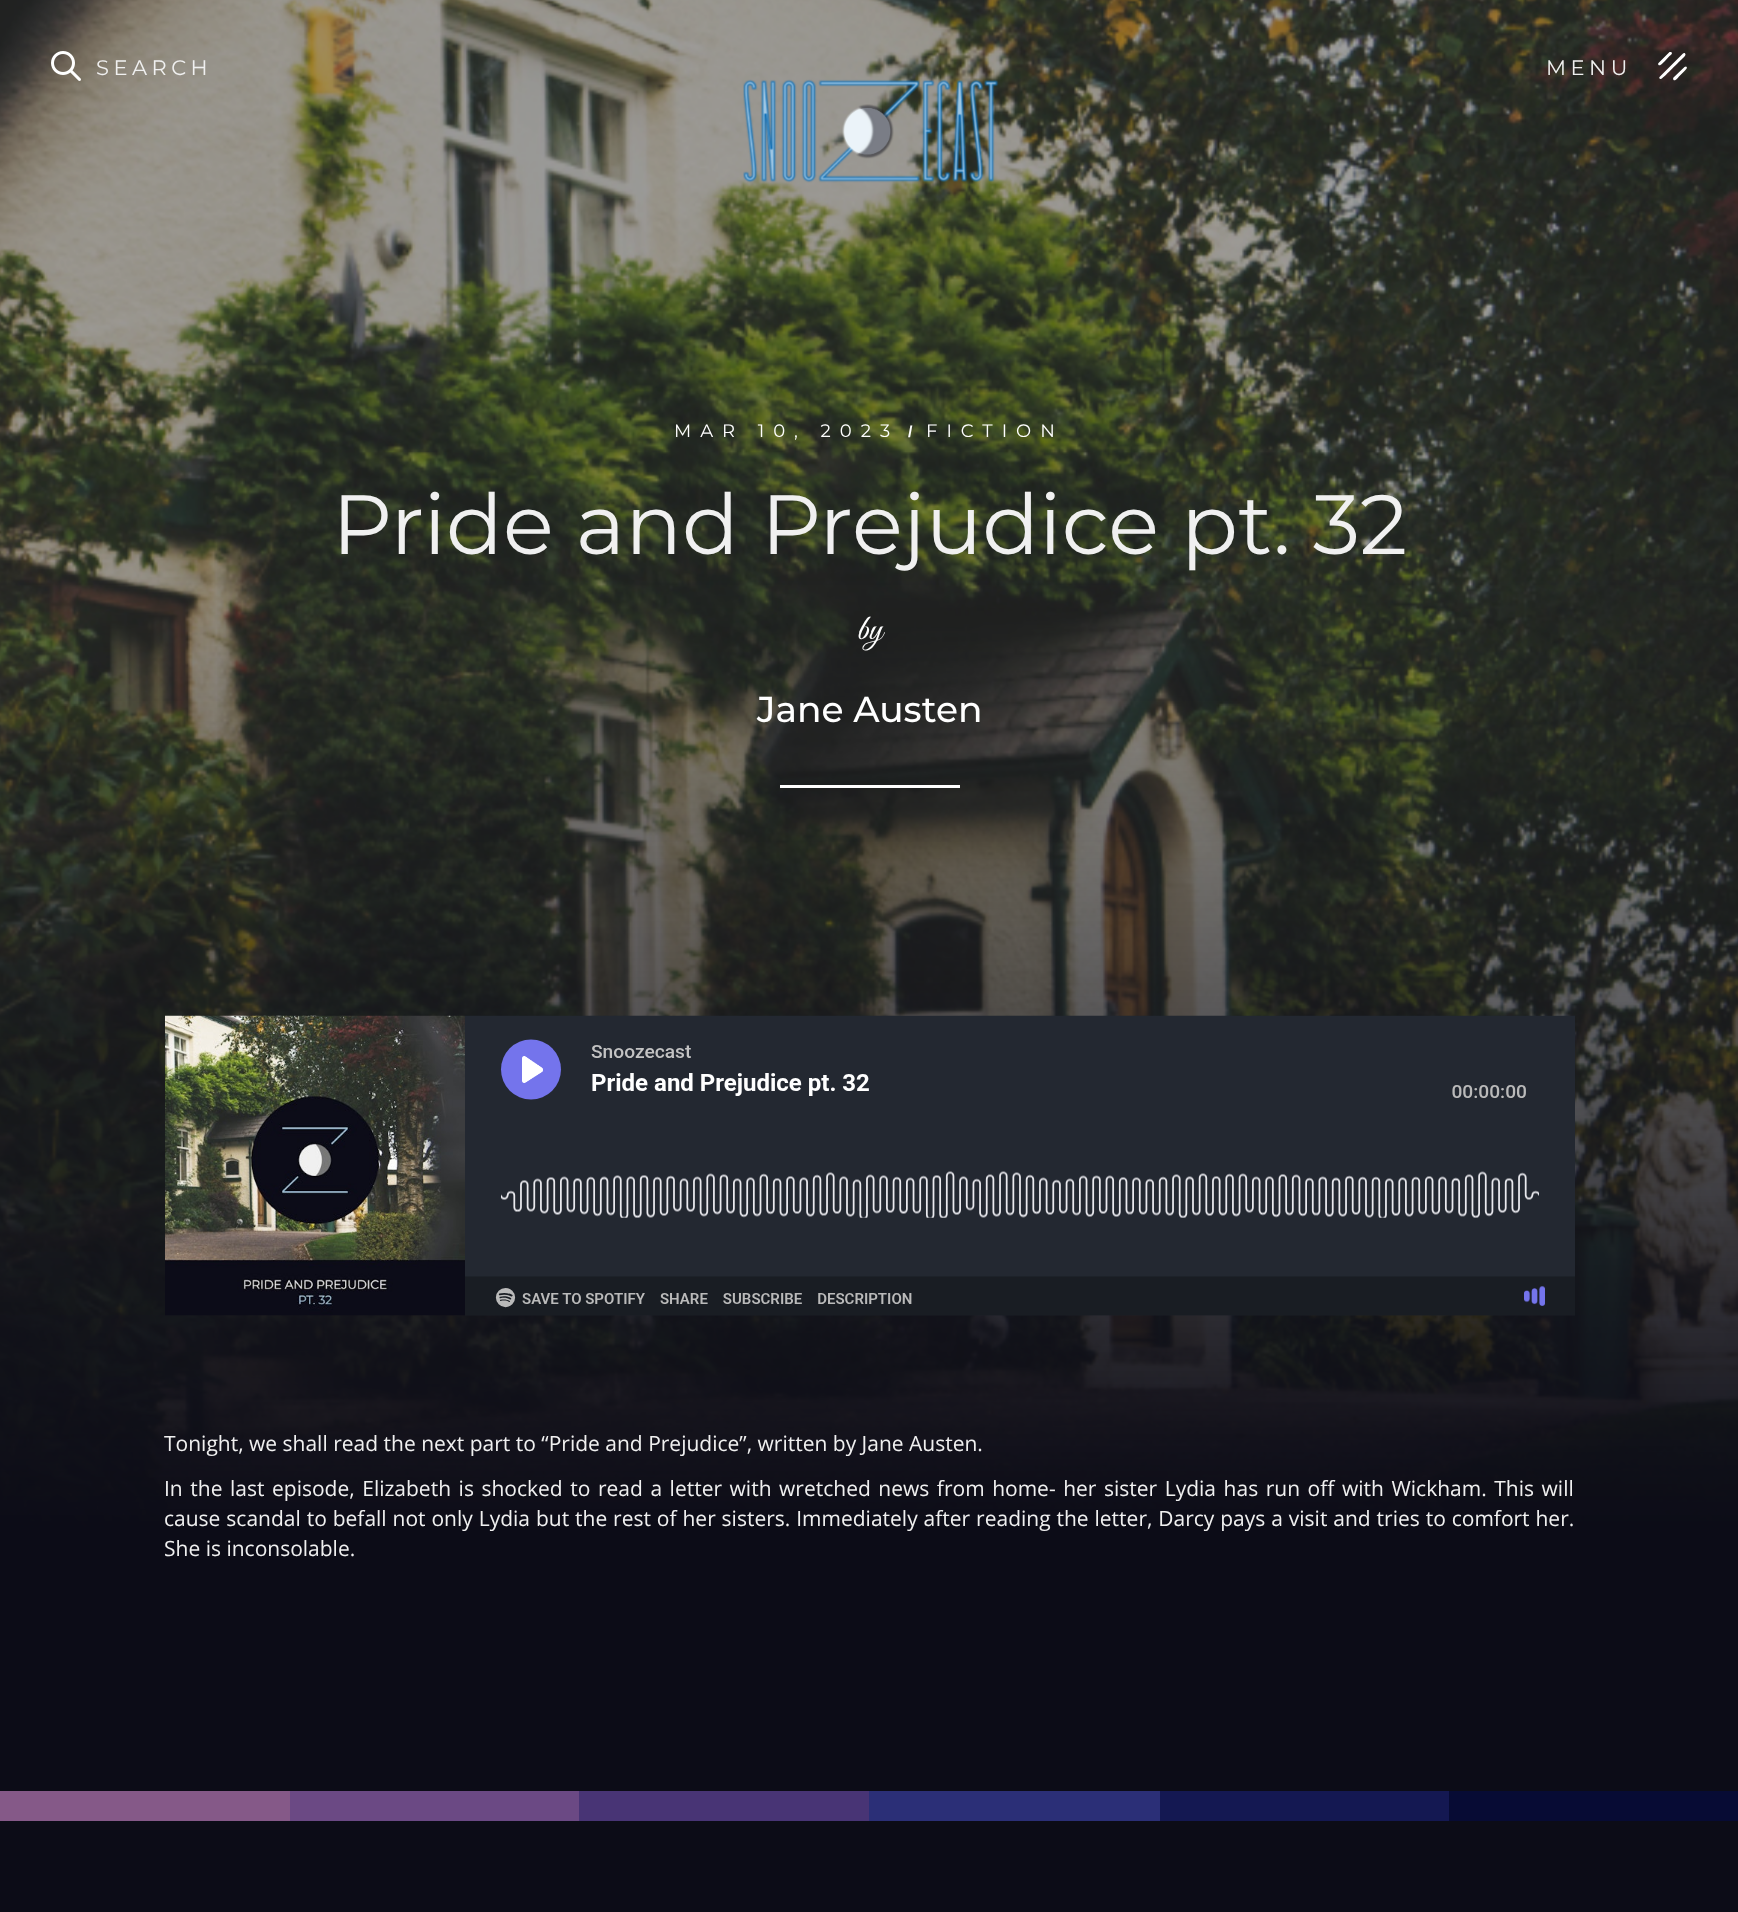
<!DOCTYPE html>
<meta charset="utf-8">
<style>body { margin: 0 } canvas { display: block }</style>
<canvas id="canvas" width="1738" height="1912"></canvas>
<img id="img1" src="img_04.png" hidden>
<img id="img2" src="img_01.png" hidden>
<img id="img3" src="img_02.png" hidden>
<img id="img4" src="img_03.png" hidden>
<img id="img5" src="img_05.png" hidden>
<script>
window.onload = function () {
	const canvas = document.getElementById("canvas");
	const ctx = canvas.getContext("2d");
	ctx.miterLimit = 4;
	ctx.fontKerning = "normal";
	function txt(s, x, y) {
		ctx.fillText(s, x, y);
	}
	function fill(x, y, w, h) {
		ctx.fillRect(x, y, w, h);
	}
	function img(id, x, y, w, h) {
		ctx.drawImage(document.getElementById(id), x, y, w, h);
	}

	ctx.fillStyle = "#FFFFFF";
	fill(0, 0, 1738, 1912);
	img("img1", 0, 0, 1738, 1912);
	img("img2", 51, 51, 30, 30);
	ctx.beginPath();
	ctx.moveTo(1658.5, 63);
	ctx.lineTo(1669.5, 52);
	ctx.lineTo(1671, 52);
	ctx.bezierCurveTo(1673.5, 53, 1670.5, 55.5, 1669.5, 56);
	ctx.lineTo(1664.5, 61.5);
	ctx.bezierCurveTo(1663.5, 62, 1660.5, 66.5, 1658.5, 65);
	ctx.bezierCurveTo(1658, 64.5, 1658, 63.5, 1658.5, 63);
	ctx.closePath();
	ctx.fill();
	ctx.beginPath();
	ctx.moveTo(1660, 76.5);
	ctx.lineTo(1683, 53.5);
	ctx.bezierCurveTo(1684, 52.5, 1685.5, 53, 1685.5, 54.5);
	ctx.bezierCurveTo(1685.5, 56.5, 1683, 57.5, 1681.5, 59.5);
	ctx.bezierCurveTo(1679, 61.5, 1662.5, 79, 1661, 79);
	ctx.bezierCurveTo(1659.5, 79.5, 1658.5, 77.5, 1660, 76.5);
	ctx.closePath();
	ctx.fill();
	ctx.beginPath();
	ctx.moveTo(1673.5, 77.5);
	ctx.lineTo(1684.5, 67);
	ctx.lineTo(1686, 66.5);
	ctx.bezierCurveTo(1688.5, 67.5, 1685, 70.5, 1684.5, 71);
	ctx.lineTo(1679, 76.5);
	ctx.bezierCurveTo(1678.5, 77, 1675.5, 81.5, 1673.5, 80);
	ctx.bezierCurveTo(1673, 79, 1673, 78, 1673.5, 77.5);
	ctx.closePath();
	ctx.fill();
	img("img3", 743, 79, 256, 104);
	img("img4", 842, 104, 52, 55);
	fill(780, 785, 180, 3);
	img("img5", 165, 1015, 1410, 301);
	ctx.fillStyle = "#855988";
	fill(0, 1791, 290, 30);
	ctx.fillStyle = "#6B4984";
	fill(290, 1791, 289, 30);
	ctx.fillStyle = "#483475";
	fill(579, 1791, 290, 30);
	ctx.fillStyle = "#2B2F77";
	fill(869, 1791, 291, 30);
	ctx.fillStyle = "#141852";
	fill(1160, 1791, 289, 30);
	ctx.fillStyle = "#070B34";
	fill(1449, 1791, 289, 30);
	ctx.letterSpacing = "4.5px";
	ctx.font = "21px Montserrat";
	ctx.fillStyle = "#F0F0F0";
	txt("SEARCH", 96, 75);
	txt("MENU", 1546, 75);
	ctx.letterSpacing = "9px";
	ctx.font = "18px Montserrat";
	ctx.fillStyle = "#FFFFFF";
	txt("MAR 10, 2023", 674, 437);
	ctx.letterSpacing = "4.5px";
	ctx.font = "bold 16px Liberation Sans";
	txt("/", 908, 437);
	ctx.letterSpacing = "9px";
	ctx.font = "18px Montserrat";
	txt("FICTION", 926, 437);
	ctx.letterSpacing = "0px";
	ctx.font = "84px 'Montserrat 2'";
	ctx.fillStyle = "#F0F0F0";
	txt("Pride and Prejudice pt. 32", 332, 554);
	ctx.font = "36px Great Vibes";
	ctx.fillStyle = "#FFFFFF";
	txt("by", 857, 639);
	ctx.font = "500 36px Montserrat";
	txt("Jane Austen", 757, 722);
	ctx.font = "21px Open Sans";
	ctx.fillStyle = "#F0F0F0";
	txt("Tonight, we shall read the next part to “Pride and Prejudice”, written by Jane Austen.", 164, 1451);
	ctx.wordSpacing = "2.1px";
	txt("In the last episode, Elizabeth is shocked to read a letter with wretched news from home- her sister Lydia has run off with Wickham. This will", 164, 1496);
	ctx.wordSpacing = "0.45px";
	txt("cause scandal to befall not only Lydia but the rest of her sisters. Immediately after reading the letter, Darcy pays a visit and tries to comfort her.", 164, 1526);
	ctx.wordSpacing = "0px";
	txt("She is inconsolable.", 164, 1556);
};
</script>
